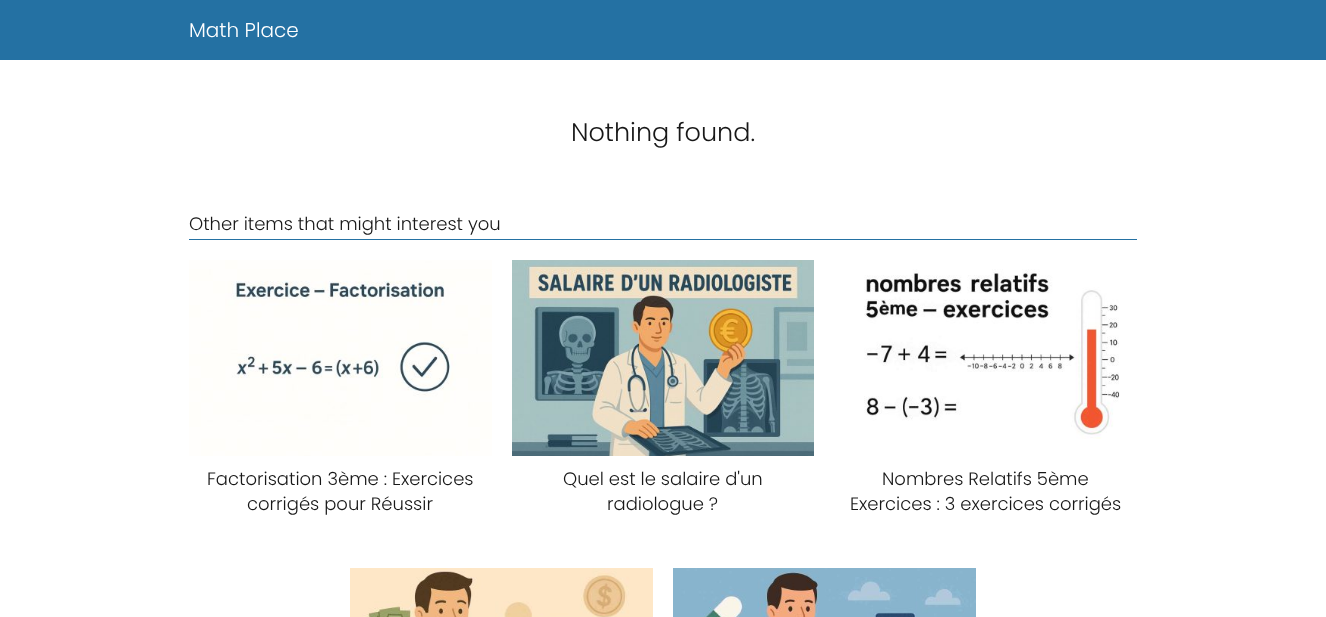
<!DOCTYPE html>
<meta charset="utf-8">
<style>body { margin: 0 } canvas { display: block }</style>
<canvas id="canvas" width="1326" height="617"></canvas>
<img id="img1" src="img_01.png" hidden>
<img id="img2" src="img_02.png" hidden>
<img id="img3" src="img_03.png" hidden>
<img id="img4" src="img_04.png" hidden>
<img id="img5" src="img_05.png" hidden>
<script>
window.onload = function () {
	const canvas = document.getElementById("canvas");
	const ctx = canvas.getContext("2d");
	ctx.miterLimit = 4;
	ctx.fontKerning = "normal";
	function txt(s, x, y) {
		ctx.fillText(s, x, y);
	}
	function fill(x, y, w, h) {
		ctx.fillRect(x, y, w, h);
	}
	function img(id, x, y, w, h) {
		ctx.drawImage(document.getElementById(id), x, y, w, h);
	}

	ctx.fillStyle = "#FFFFFF";
	fill(0, 0, 1326, 617);
	ctx.fillStyle = "#2471A3";
	fill(0, 0, 1326, 60);
	fill(189, 239, 948, 1);
	img("img1", 189, 260, 303, 196);
	img("img2", 512, 260, 302, 196);
	img("img3", 864, 269, 256, 170);
	img("img4", 350, 568, 303, 49);
	img("img5", 673, 568, 303, 49);
	ctx.font = "300 20px Poppins";
	ctx.fillStyle = "#FFFFFF";
	txt("Math Place", 189, 37);
	ctx.font = "300 25.5px Poppins";
	ctx.fillStyle = "#181818";
	txt("Nothing found.", 571, 141);
	ctx.font = "300 18px Poppins";
	txt("Other items that might interest you", 189, 230);
	txt("Factorisation 3ème : Exercices", 207, 485);
	txt("corrigés pour Réussir", 247, 510);
	txt("Quel est le salaire d'un", 563, 485);
	txt("radiologue ?", 607, 510);
	txt("Nombres Relatifs 5ème", 882, 485);
	txt("Exercices : 3 exercices corrigés", 850, 510);
};
</script>
